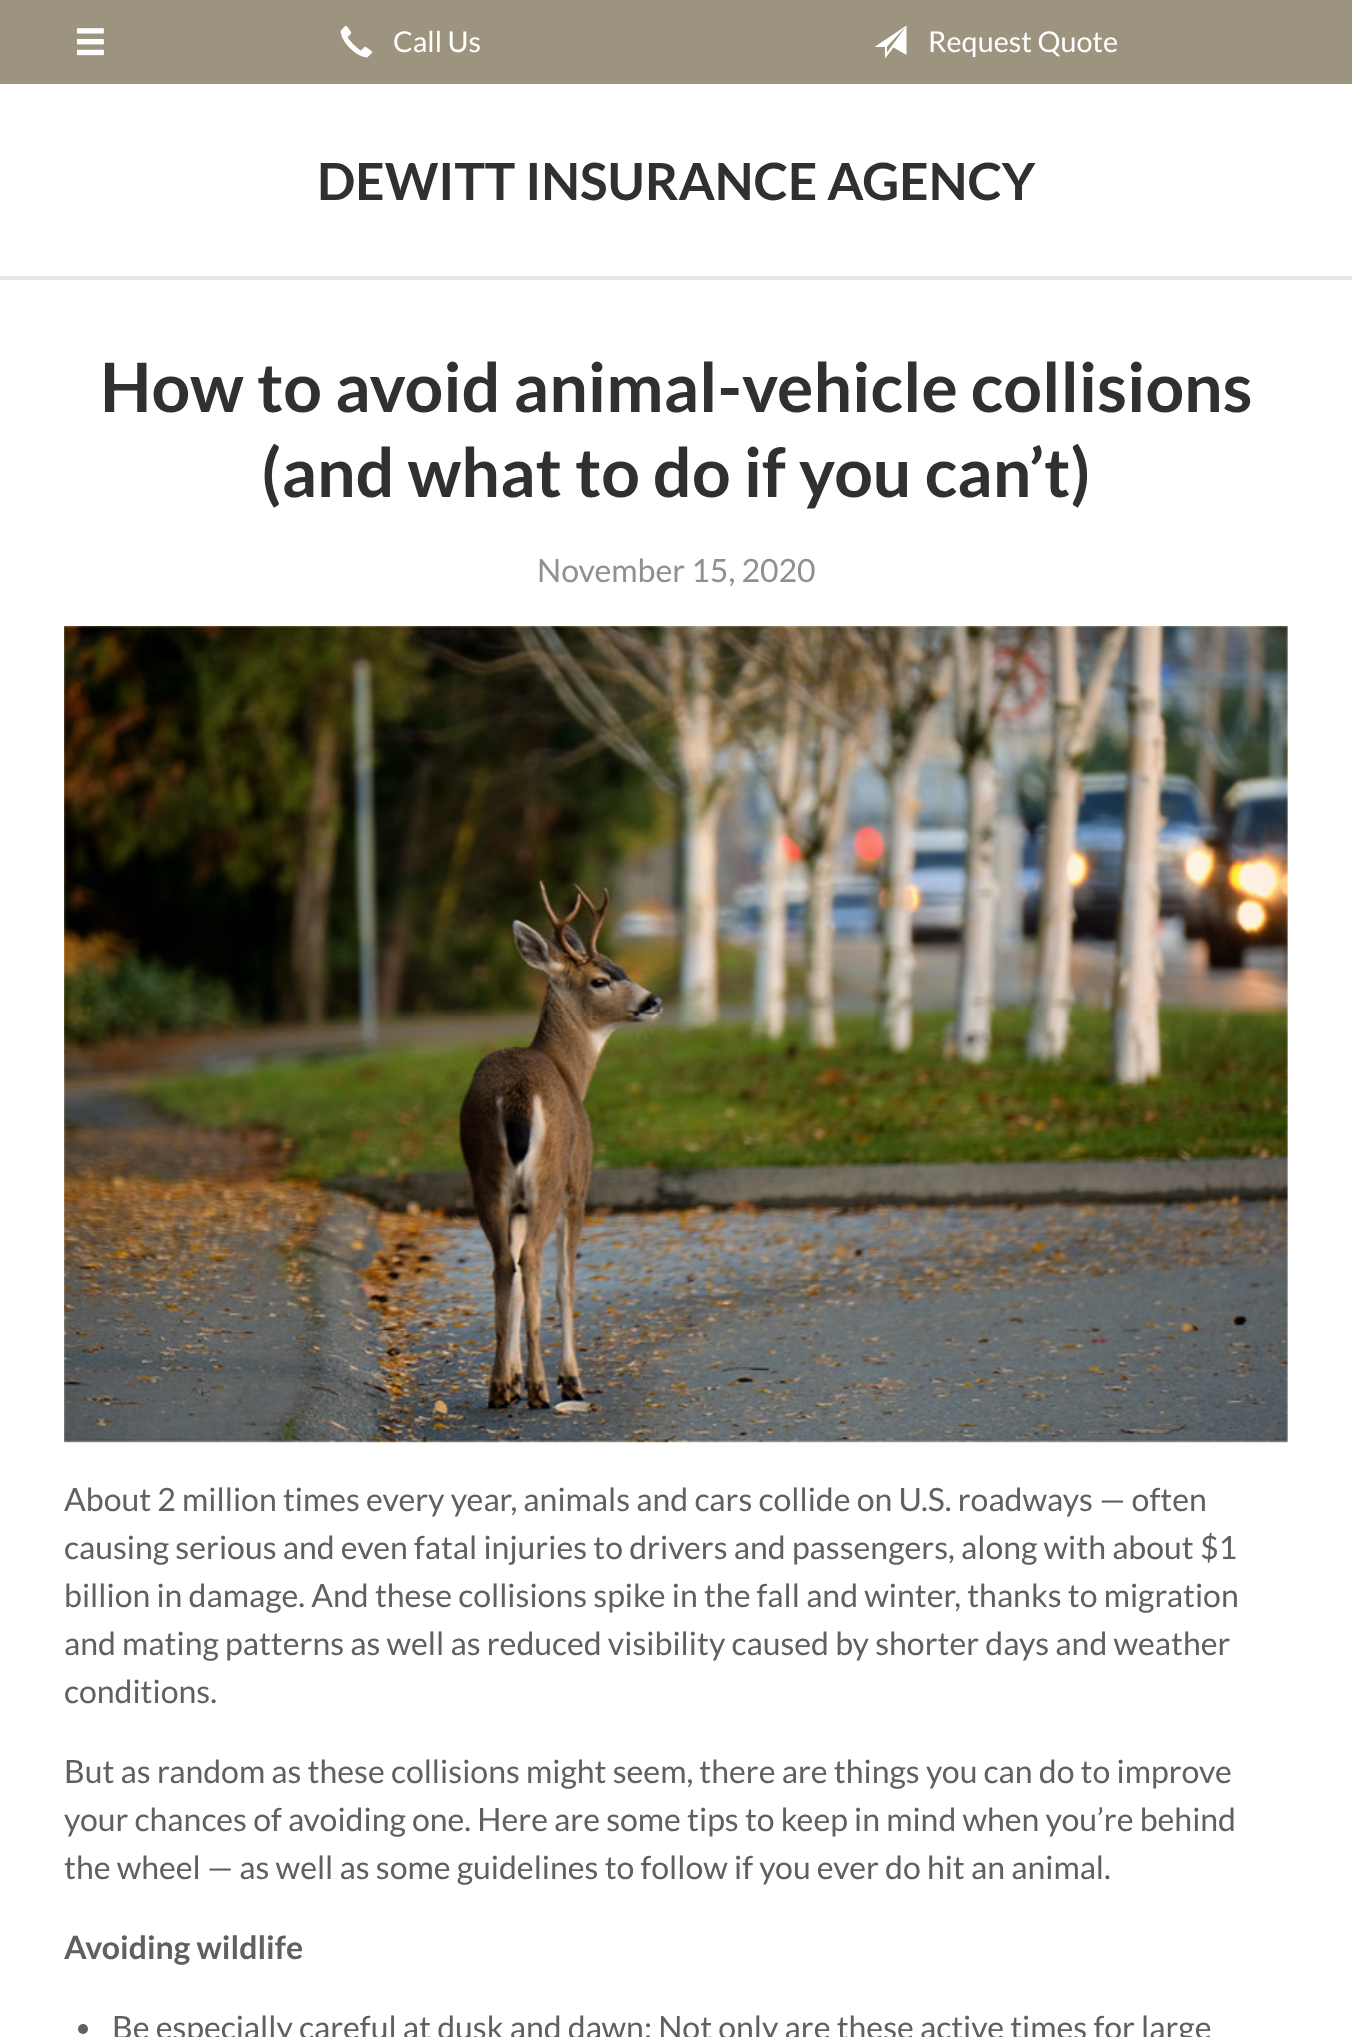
<!DOCTYPE html>
<meta charset="utf-8">
<style>body { margin: 0 } canvas { display: block }</style>
<canvas id="canvas" width="1352" height="2037"></canvas>
<img id="img1" src="img_01.png" hidden>
<img id="img2" src="img_02.png" hidden>
<img id="img3" src="img_03.png" hidden>
<script>
window.onload = function () {
	const canvas = document.getElementById("canvas");
	const ctx = canvas.getContext("2d");
	ctx.miterLimit = 4;
	ctx.fontKerning = "normal";
	function txt(s, x, y) {
		ctx.fillText(s, x, y);
	}
	function fill(x, y, w, h) {
		ctx.fillRect(x, y, w, h);
	}
	function img(id, x, y, w, h) {
		ctx.drawImage(document.getElementById(id), x, y, w, h);
	}

	ctx.fillStyle = "#9C947F";
	fill(0, 0, 1352, 2037);
	img("img1", 76, 28, 28, 28);
	img("img2", 340, 25, 33, 33);
	ctx.fillStyle = "#FFFFFF";
	ctx.beginPath();
	ctx.moveTo(874.5, 47);
	ctx.lineTo(885, 47);
	ctx.lineTo(885, 58.5);
	ctx.lineTo(893.5, 47.5);
	ctx.lineTo(906.5, 55);
	ctx.lineTo(906.5, 25.5);
	ctx.closePath();
	ctx.moveTo(887, 52.5);
	ctx.lineTo(887, 46.5);
	ctx.lineTo(905.5, 27);
	ctx.closePath();
	ctx.fill();
	fill(0, 84, 1352, 192);
	ctx.fillStyle = "#E6E6E6";
	fill(0, 276, 1352, 4);
	ctx.fillStyle = "#FFFFFF";
	fill(0, 280, 1352, 1757);
	img("img3", 64, 626, 1224, 817);
	ctx.fillStyle = "#606060";
	ctx.beginPath();
	ctx.arc(83, 2029, 5, 0, Math.PI * 2);
	ctx.fill();
	ctx.font = "28.75px Lato";
	ctx.fillStyle = "#FFFFFF";
	txt("Call Us", 393, 52);
	txt("Request Quote", 928, 52);
	ctx.font = "bold 51.25px Lato";
	ctx.fillStyle = "#303030";
	txt("DEWITT INSURANCE AGENCY", 317, 200);
	ctx.font = "bold 68px Lato";
	txt("How to avoid animal-vehicle collisions", 100, 412);
	txt("(and what to do if you can’t)", 261, 497);
	ctx.font = "32px Lato";
	ctx.fillStyle = "#909090";
	txt("November 15, 2020", 537, 582);
	ctx.fillStyle = "#606060";
	txt("About 2 million times every year, animals and cars collide on U.S. roadways — often", 64, 1511);
	txt("causing serious and even fatal injuries to drivers and passengers, along with about $1", 64, 1559);
	txt("billion in damage. And these collisions spike in the fall and winter, thanks to migration", 64, 1607);
	txt("and mating patterns as well as reduced visibility caused by shorter days and weather", 64, 1655);
	txt("conditions.", 64, 1703);
	txt("But as random as these collisions might seem, there are things you can do to improve", 64, 1783);
	txt("your chances of avoiding one. Here are some tips to keep in mind when you’re behind", 64, 1831);
	txt("the wheel — as well as some guidelines to follow if you ever do hit an animal.", 64, 1879);
	ctx.font = "bold 32px Lato";
	txt("Avoiding wildlife", 64, 1959);
	ctx.font = "32px Lato";
	txt("Be especially careful at dusk and dawn: Not only are these active times for large", 112, 2039);
};
</script>
